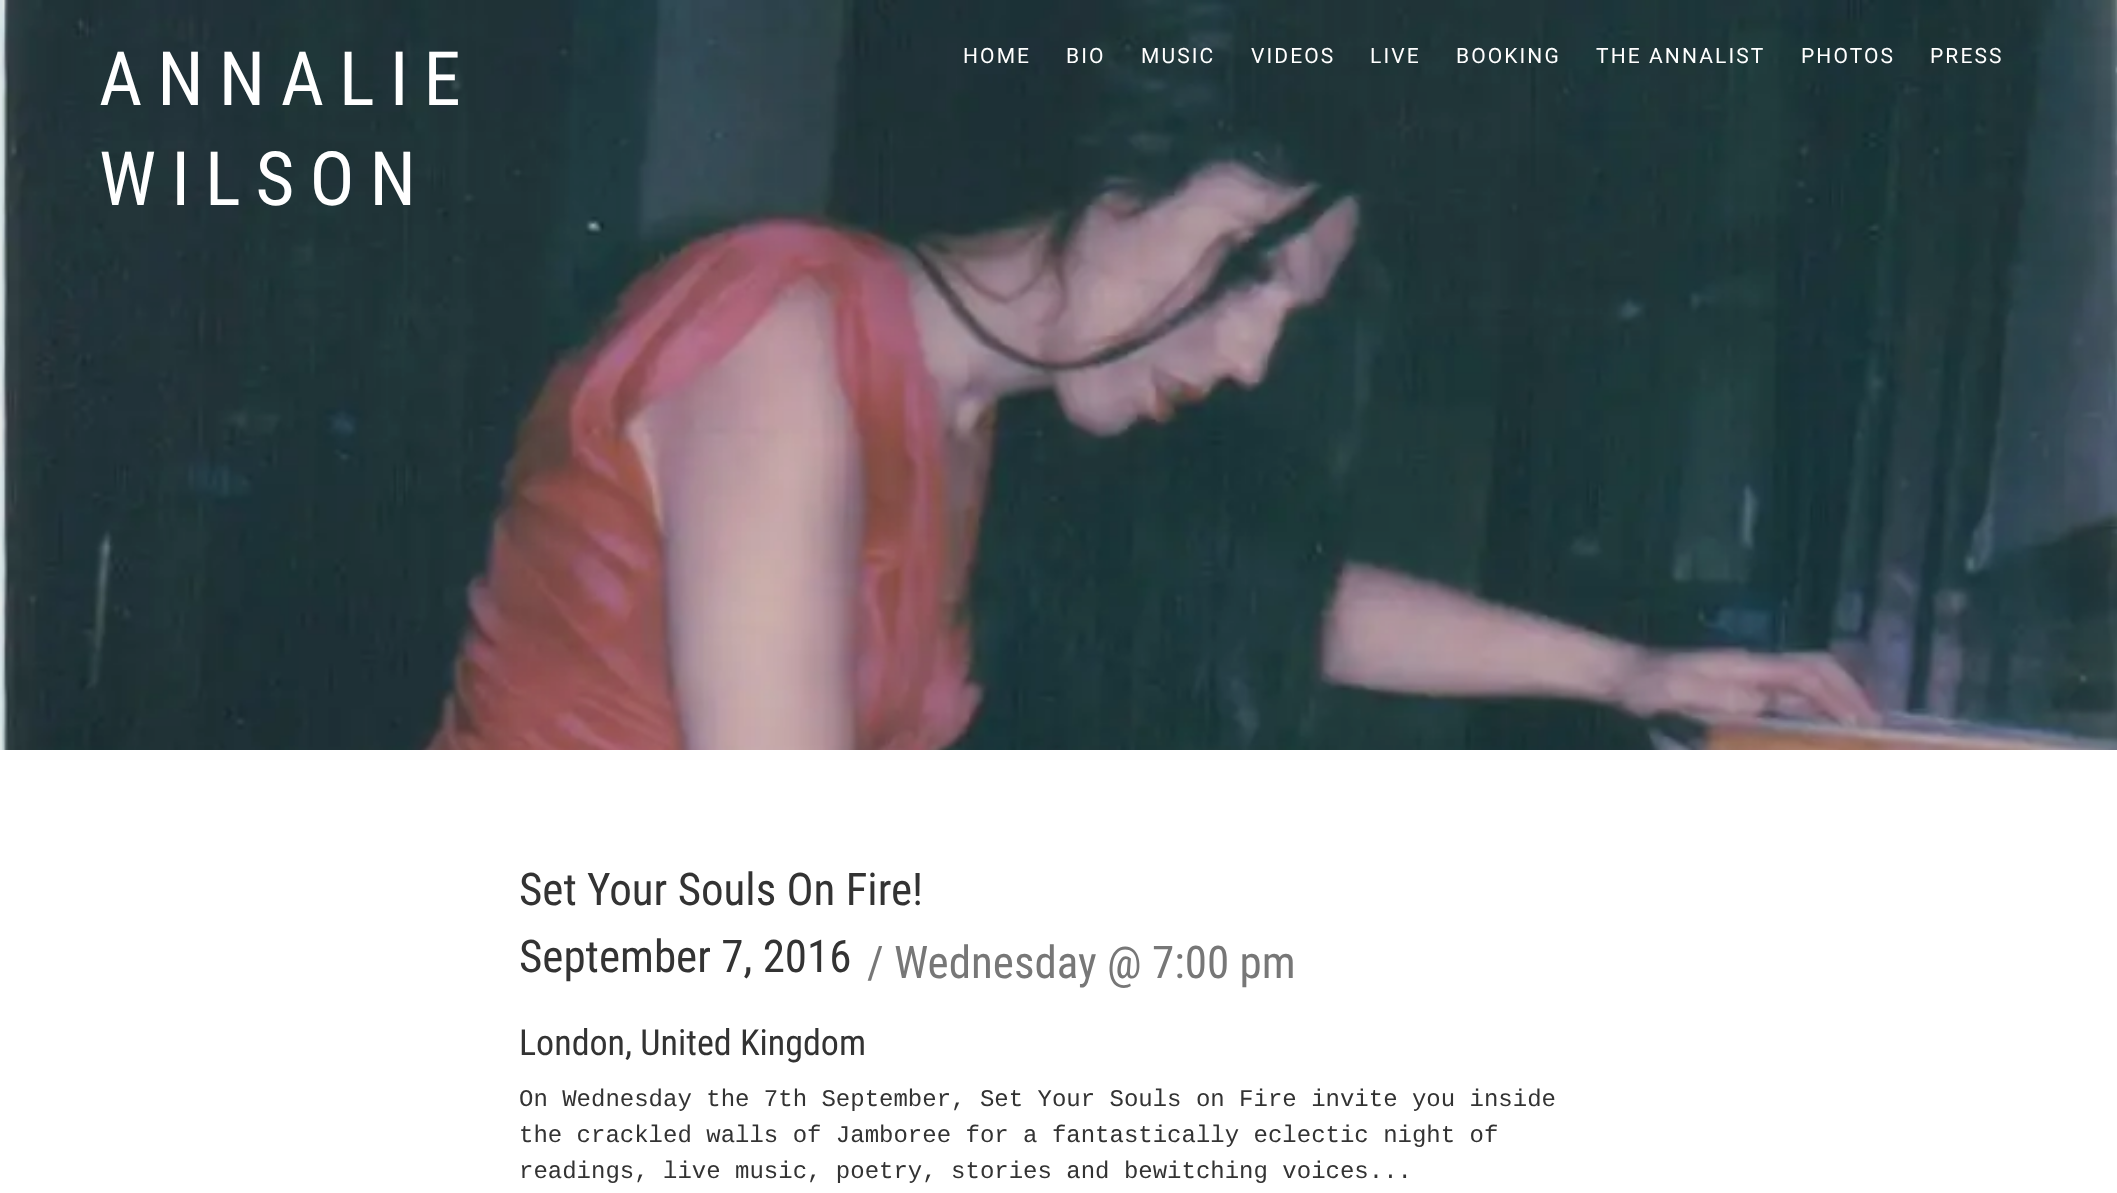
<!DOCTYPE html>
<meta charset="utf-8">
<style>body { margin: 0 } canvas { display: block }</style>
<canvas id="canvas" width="2117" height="1193"></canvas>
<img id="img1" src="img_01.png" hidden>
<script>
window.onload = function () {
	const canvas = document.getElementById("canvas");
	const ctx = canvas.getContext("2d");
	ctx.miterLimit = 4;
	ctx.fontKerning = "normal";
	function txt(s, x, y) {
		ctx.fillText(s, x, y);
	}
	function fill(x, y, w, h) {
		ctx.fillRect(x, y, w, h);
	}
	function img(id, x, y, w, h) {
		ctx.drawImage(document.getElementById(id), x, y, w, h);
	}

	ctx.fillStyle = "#FFFFFF";
	fill(0, 0, 2117, 1193);
	img("img1", 0, 0, 2117, 750);
	ctx.letterSpacing = "15px";
	ctx.font = "75px Roboto Condensed";
	txt("ANNALIE", 99, 105);
	txt("WILSON", 99, 205);
	ctx.letterSpacing = "2.1px";
	ctx.font = "21px Roboto";
	txt("HOME", 963, 63);
	txt("BIO", 1066, 63);
	txt("MUSIC", 1141, 63);
	txt("VIDEOS", 1251, 63);
	txt("LIVE", 1370, 63);
	txt("BOOKING", 1456, 63);
	txt("THE ANNALIST", 1596, 63);
	txt("PHOTOS", 1801, 63);
	txt("PRESS", 1930, 63);
	ctx.letterSpacing = "0px";
	ctx.font = "45px Roboto Condensed";
	ctx.fillStyle = "#333333";
	txt("Set Your Souls On Fire!", 519, 905);
	txt("September 7, 2016", 519, 972);
	ctx.fillStyle = "#777777";
	txt("/ Wednesday @ 7:00 pm", 867, 978);
	ctx.font = "36px Roboto Condensed";
	ctx.fillStyle = "#333333";
	txt("London, United Kingdom", 519, 1055);
	ctx.font = "24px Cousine";
	txt("On Wednesday the 7th September, Set Your Souls on Fire invite you inside", 519, 1106);
	txt("the crackled walls of Jamboree for a fantastically eclectic night of", 519, 1142);
	txt("readings, live music, poetry, stories and bewitching voices...", 519, 1178);
};
</script>
